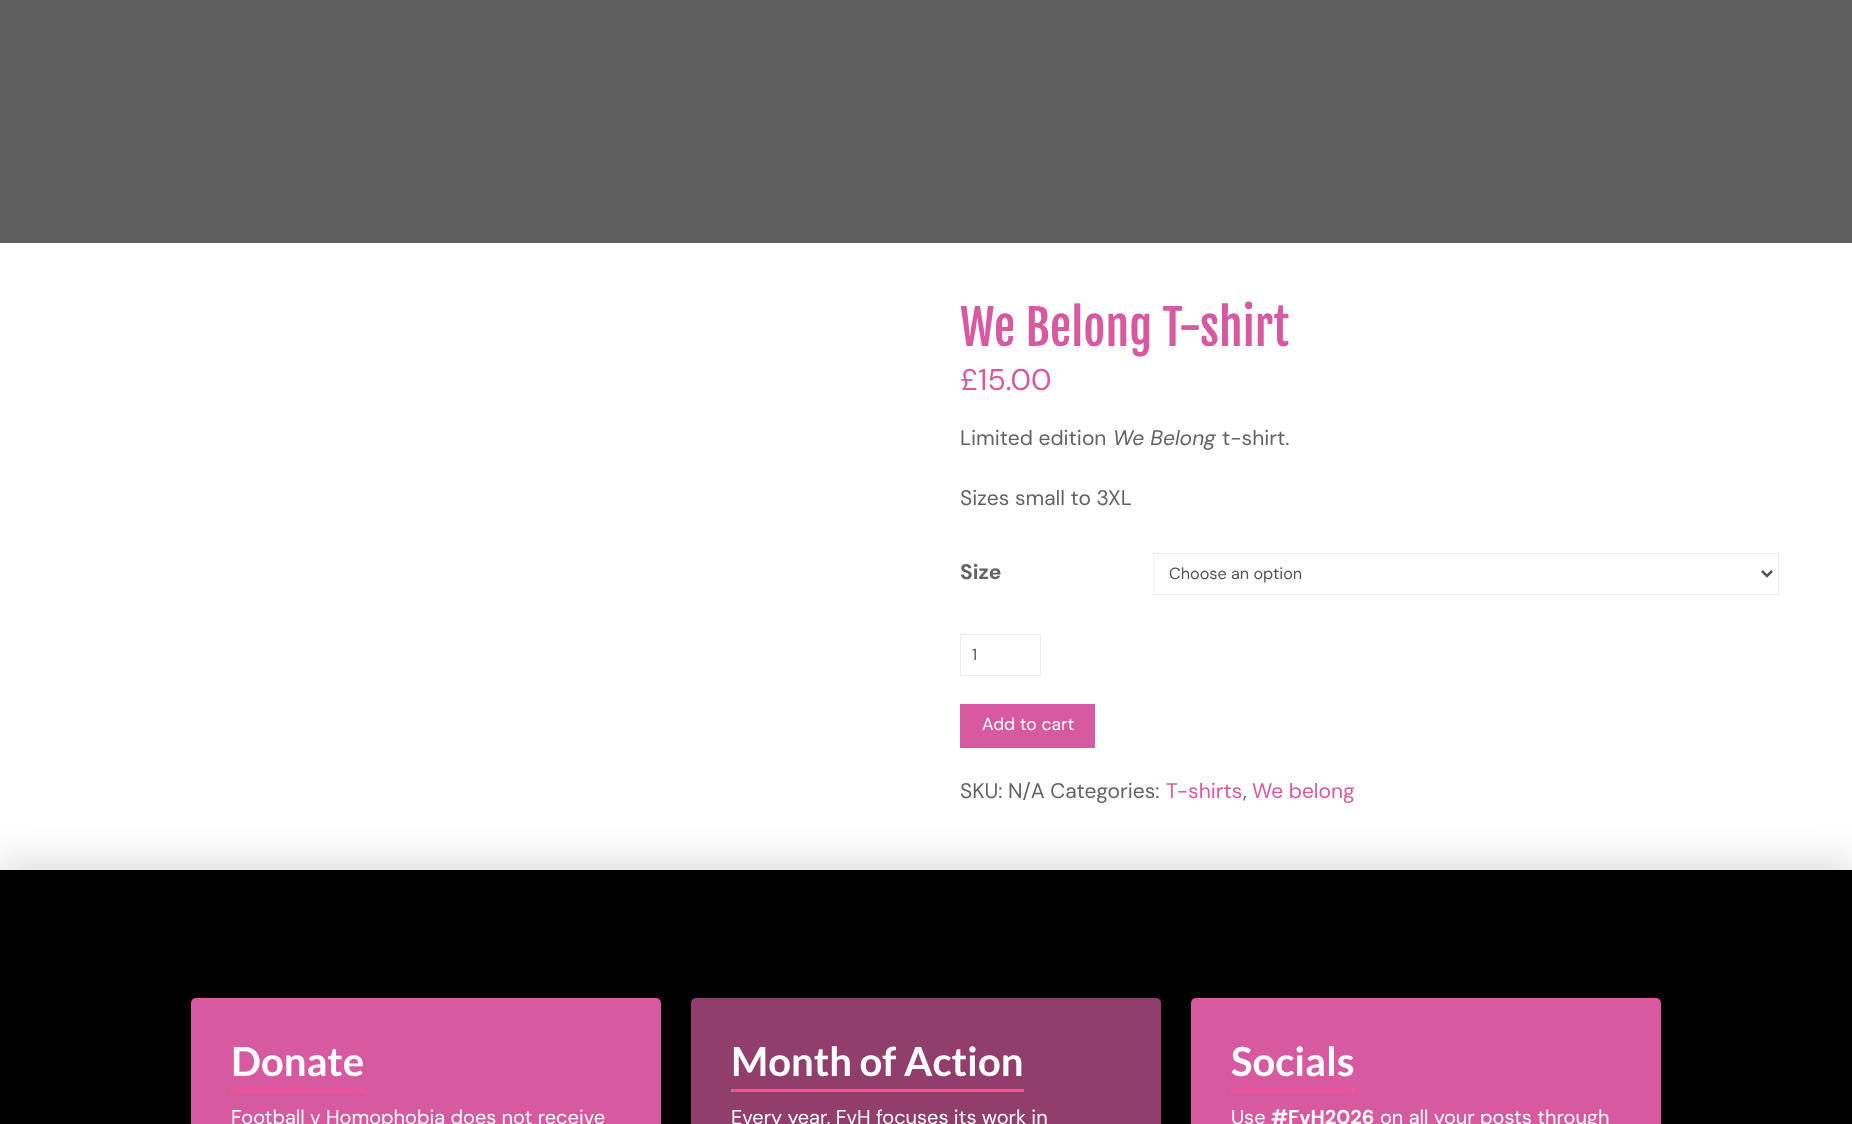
<!DOCTYPE html>
<meta charset="utf-8">
<style>body { margin: 0 } canvas { display: block }</style>
<canvas id="canvas" width="1852" height="1124"></canvas>
<script>
window.onload = function () {
	const canvas = document.getElementById("canvas");
	const ctx = canvas.getContext("2d");
	ctx.miterLimit = 4;
	ctx.fontKerning = "normal";
	function txt(s, x, y) {
		ctx.fillText(s, x, y);
	}
	function fill(x, y, w, h) {
		ctx.fillRect(x, y, w, h);
	}
	function round(x, y, w, h, r) {
		ctx.beginPath();
		ctx.roundRect(x, y, w, h, r);
		ctx.fill();
	}

	ctx.fillStyle = "#FFFFFF";
	fill(0, 0, 1852, 1124);
	ctx.fillStyle = "#5F5F5F";
	fill(0, 0, 1852, 243);
	ctx.strokeStyle = "#ECECEC";
	ctx.strokeRect(1153.5, 553.5, 625, 41);
	ctx.beginPath();
	ctx.moveTo(1762, 571);
	ctx.lineTo(1767, 576);
	ctx.lineTo(1772, 571);
	ctx.strokeStyle = "#555555";
	ctx.lineWidth = 2.5;
	ctx.stroke();
	ctx.strokeStyle = "#ECECEC";
	ctx.lineWidth = 1;
	ctx.strokeRect(960.5, 634.5, 80, 41);
	ctx.fillStyle = "#D75AA1";
	fill(960, 704, 135, 44);
	ctx.fillStyle = "rgba(0, 0, 0, 0.15)";
	ctx.filter = "blur(20px)";
	ctx.beginPath();
	ctx.rect(0, 863, 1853, 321);
	ctx.fill();
	ctx.filter = "none";
	ctx.fillStyle = "#000000";
	fill(0, 870, 1852, 254);
	ctx.fillStyle = "#D75AA1";
	round(191, 998, 470, 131, 5);
	ctx.fillStyle = "#FF5192";
	fill(231, 1089, 134, 3);
	ctx.fillStyle = "#913E6D";
	round(691, 998, 470, 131, 5);
	ctx.fillStyle = "#FF5192";
	fill(731, 1089, 293, 3);
	ctx.fillStyle = "#D75AA1";
	round(1191, 998, 470, 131, 5);
	ctx.fillStyle = "#FF5192";
	fill(1231, 1089, 124, 3);
	ctx.font = "48px Fjalla One";
	ctx.fillStyle = "#D75AA1";
	txt("We Belong T-shirt", 960, 346);
	ctx.font = "30px DM Sans";
	txt("£15.00", 960, 390);
	ctx.font = "21px DM Sans";
	ctx.fillStyle = "#636363";
	txt("Limited edition", 960, 445);
	ctx.font = "italic 21px DM Sans";
	txt("We Belong", 1113, 445);
	ctx.font = "21px DM Sans";
	txt("t-shirt.", 1222, 445);
	txt("Sizes small to 3XL", 960, 505);
	ctx.font = "bold 21px DM Sans";
	txt("Size", 960, 579);
	ctx.font = "16.25px DM Sans";
	ctx.fillStyle = "#555555";
	txt("Choose an option", 1169, 579);
	txt("1", 972, 660);
	ctx.font = "17.5px DM Sans";
	ctx.fillStyle = "#FFFFFF";
	txt("Add to cart", 982, 730);
	ctx.font = "21px DM Sans";
	ctx.fillStyle = "#636363";
	txt("SKU: N/A Categories:", 960, 798);
	ctx.fillStyle = "#D75AA1";
	txt("T-shirts", 1166, 798);
	ctx.fillStyle = "#636363";
	txt(",", 1243, 798);
	ctx.fillStyle = "#D75AA1";
	txt("We belong", 1252, 798);
	ctx.font = "bold 40px Lato";
	ctx.fillStyle = "#FFFFFF";
	txt("Donate", 231, 1076);
	ctx.font = "20px DM Sans";
	txt("Football v Homophobia does not receive", 231, 1124);
	ctx.font = "bold 40px Lato";
	txt("Month of Action", 731, 1076);
	ctx.font = "20px DM Sans";
	txt("Every year, FvH focuses its work in", 731, 1124);
	ctx.font = "bold 40px Lato";
	txt("Socials", 1231, 1076);
	ctx.font = "20px DM Sans";
	txt("Use", 1231, 1124);
	ctx.font = "bold 20px DM Sans";
	txt("#FvH2026", 1271, 1124);
	ctx.font = "20px DM Sans";
	txt("on all your posts through", 1380, 1124);
};
</script>
